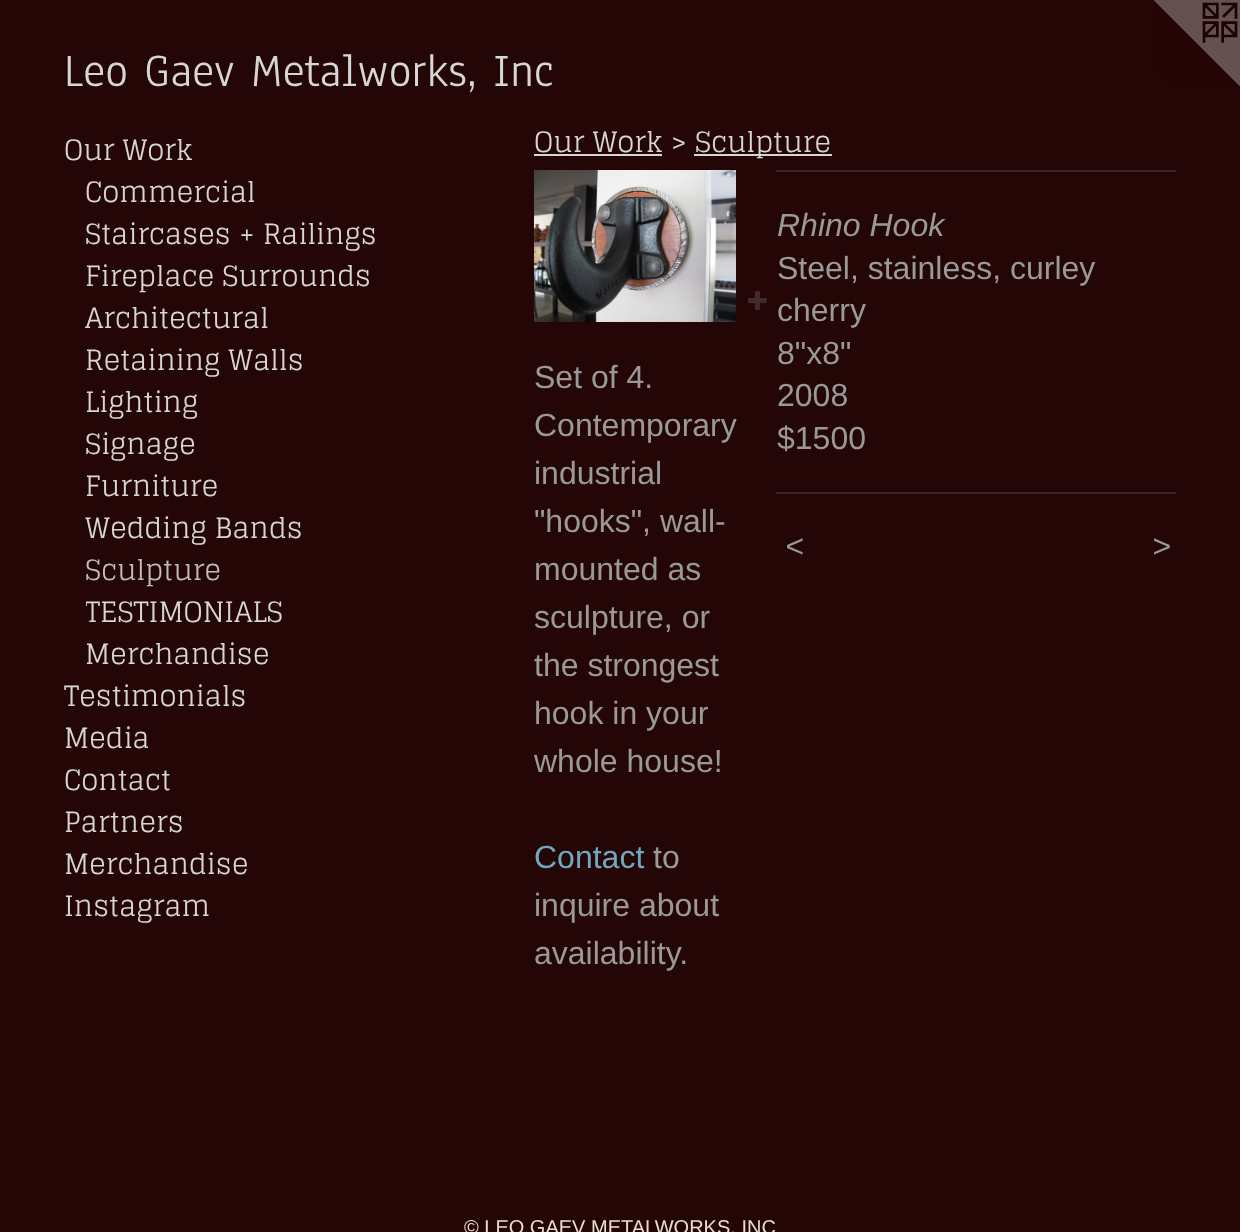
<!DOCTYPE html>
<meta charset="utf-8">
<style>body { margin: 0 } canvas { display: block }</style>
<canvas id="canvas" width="1240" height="1232"></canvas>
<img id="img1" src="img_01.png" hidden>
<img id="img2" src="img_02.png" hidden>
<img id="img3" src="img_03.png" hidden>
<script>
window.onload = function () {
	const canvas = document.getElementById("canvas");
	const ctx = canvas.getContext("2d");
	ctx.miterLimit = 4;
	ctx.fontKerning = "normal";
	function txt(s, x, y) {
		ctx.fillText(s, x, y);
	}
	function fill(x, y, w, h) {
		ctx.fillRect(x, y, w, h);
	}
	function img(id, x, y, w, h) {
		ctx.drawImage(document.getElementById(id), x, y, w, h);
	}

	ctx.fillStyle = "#250606";
	fill(0, 0, 1240, 1232);
	img("img1", 1154, 0, 86, 87);
	ctx.fillStyle = "#D6D6D6";
	fill(534, 154, 128, 2);
	fill(694, 154, 138, 2);
	img("img2", 534, 170, 202, 152);
	img("img3", 748, 291, 19, 19);
	ctx.fillStyle = "#3C2323";
	fill(776, 170, 400, 2);
	fill(776, 492, 400, 2);
	ctx.font = "48px Anaheim";
	ctx.fillStyle = "#D6D6D6";
	txt("Leo Gaev Metalworks, Inc", 64, 86);
	ctx.font = "28px Glegoo";
	txt("Our Work", 64, 160);
	txt("Commercial", 85, 202);
	txt("Staircases + Railings", 85, 244);
	txt("Fireplace Surrounds", 85, 286);
	txt("Architectural", 85, 328);
	txt("Retaining Walls", 85, 370);
	txt("Lighting", 85, 412);
	txt("Signage", 85, 454);
	txt("Furniture", 85, 496);
	txt("Wedding Bands", 85, 538);
	ctx.fillStyle = "#BDBDBD";
	txt("Sculpture", 85, 580);
	ctx.save();
	ctx.beginPath();
	ctx.rect(86, 590, 378, 42);
	ctx.clip();
	ctx.fillStyle = "#D6D6D6";
	txt("TESTIMONIALS", 85, 622);
	ctx.restore();
	ctx.fillStyle = "#D6D6D6";
	txt("Merchandise", 85, 664);
	txt("Testimonials", 64, 706);
	txt("Media", 64, 748);
	txt("Contact", 64, 790);
	txt("Partners", 64, 832);
	txt("Merchandise", 64, 874);
	txt("Instagram", 64, 916);
	txt("Our Work >", 534, 152);
	txt("Sculpture", 695, 152);
	ctx.font = "32px Liberation Sans";
	ctx.fillStyle = "#999999";
	txt("Set of 4.", 534, 388);
	txt("Contemporary", 534, 436);
	txt("industrial", 534, 484);
	txt("\"hooks\", wall-", 534, 532);
	txt("mounted as", 534, 580);
	txt("sculpture, or", 534, 628);
	txt("the strongest", 534, 676);
	txt("hook in your", 534, 724);
	txt("whole house!", 534, 772);
	ctx.fillStyle = "#70A8C0";
	txt("Contact", 534, 868);
	ctx.fillStyle = "#999999";
	txt("to", 653, 868);
	txt("inquire about", 534, 916);
	txt("availability.", 534, 964);
	ctx.font = "italic 32px Liberation Sans";
	txt("Rhino Hook", 777, 236);
	ctx.font = "32px Liberation Sans";
	txt("Steel, stainless, curley", 777, 279);
	txt("cherry", 777, 321);
	txt("8\"x8\"", 777, 364);
	txt("2008", 777, 406);
	txt("$1500", 777, 449);
	ctx.letterSpacing = "2px";
	ctx.font = "italic 32px Liberation Sans";
	txt("<", 785, 557);
	txt(">", 1152, 557);
	ctx.letterSpacing = "0px";
	ctx.font = "20px Liberation Sans";
	ctx.fillStyle = "#E7DFCB";
	txt("© LEO GAEV METALWORKS, INC", 464, 1234);
};
</script>
